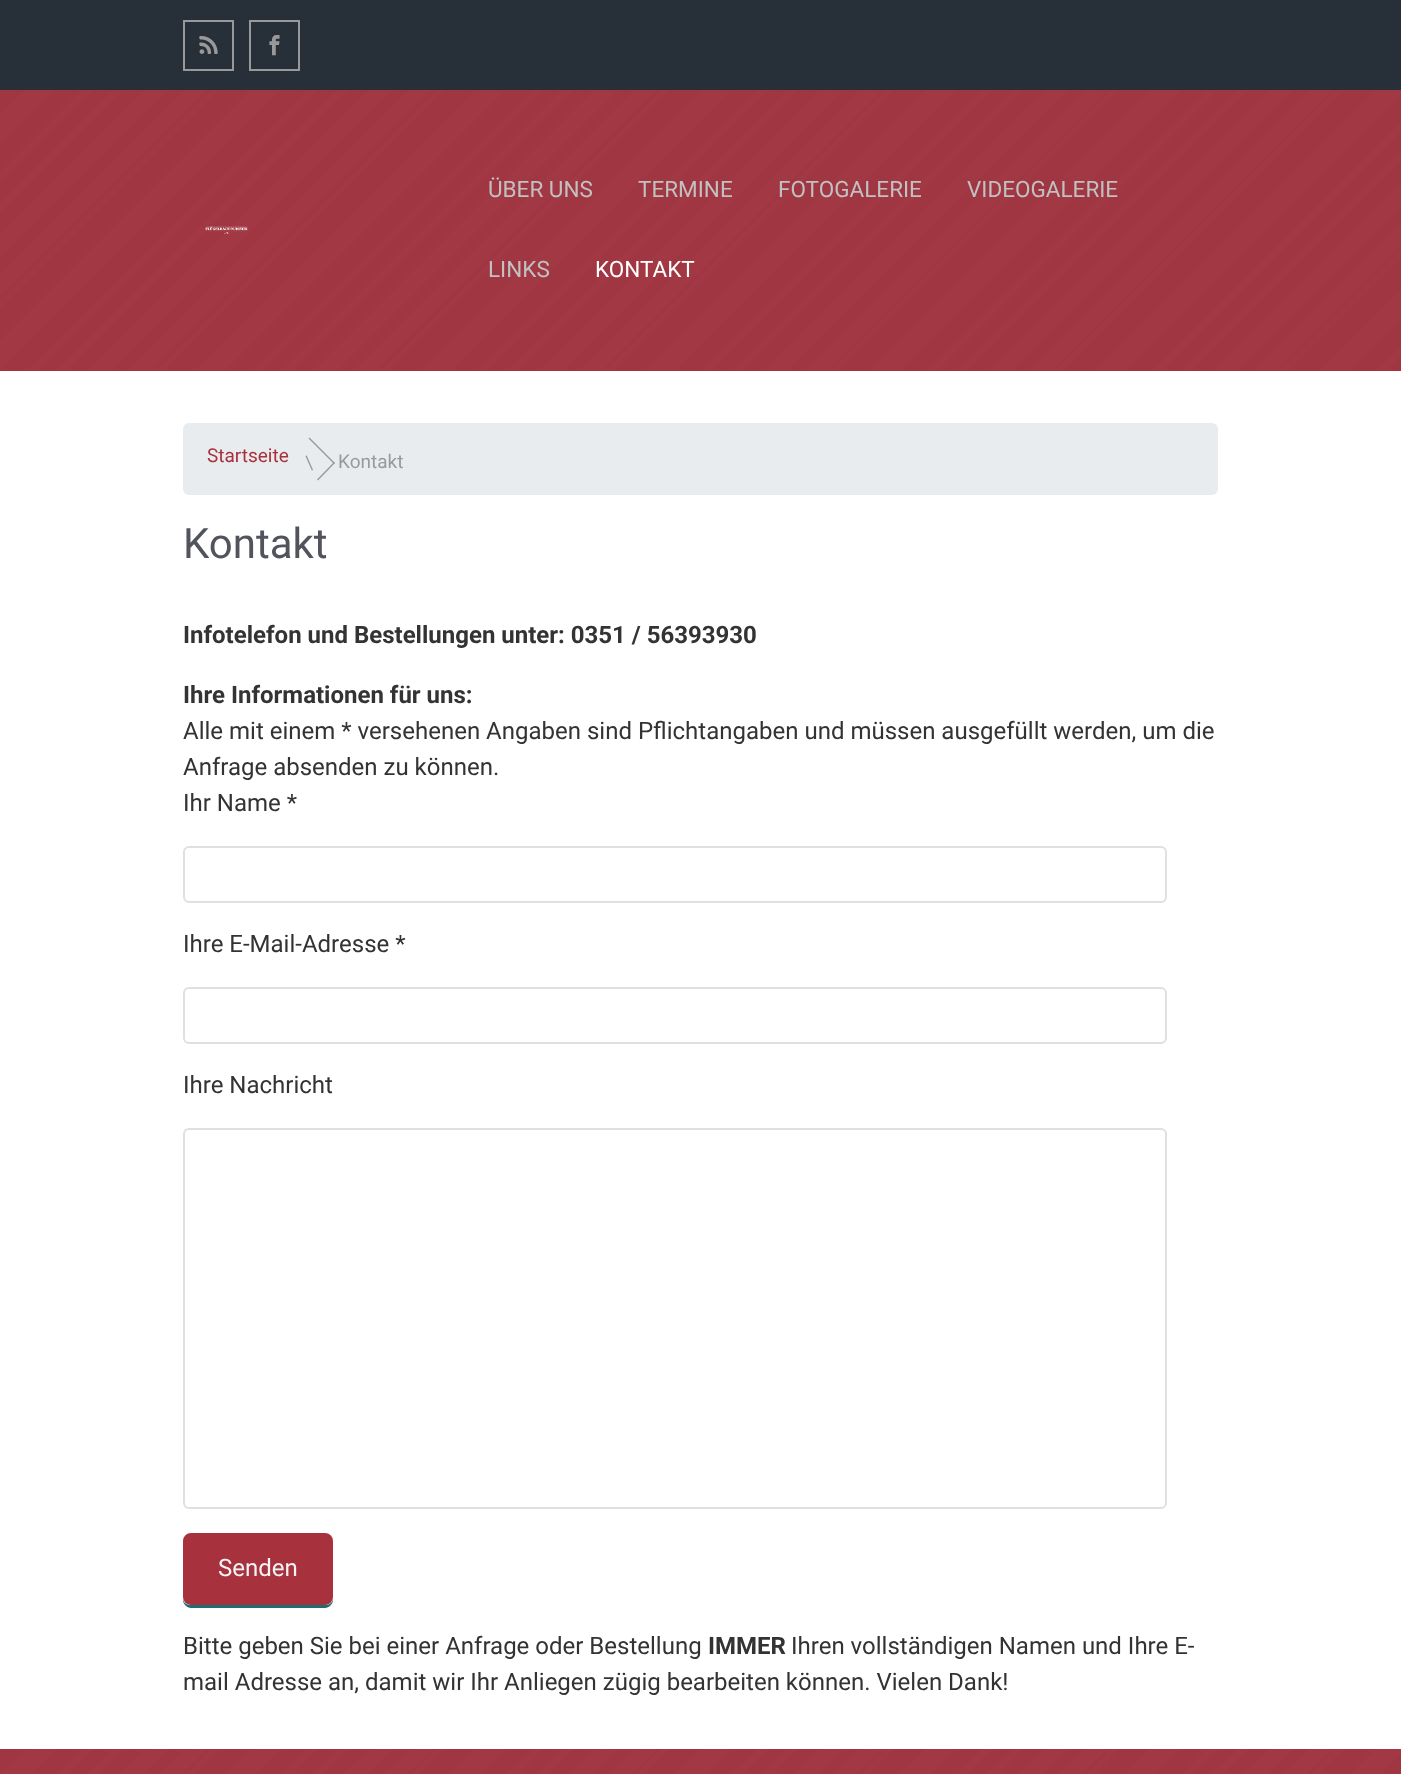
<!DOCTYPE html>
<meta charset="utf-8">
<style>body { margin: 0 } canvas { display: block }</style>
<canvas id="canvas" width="1401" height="1774"></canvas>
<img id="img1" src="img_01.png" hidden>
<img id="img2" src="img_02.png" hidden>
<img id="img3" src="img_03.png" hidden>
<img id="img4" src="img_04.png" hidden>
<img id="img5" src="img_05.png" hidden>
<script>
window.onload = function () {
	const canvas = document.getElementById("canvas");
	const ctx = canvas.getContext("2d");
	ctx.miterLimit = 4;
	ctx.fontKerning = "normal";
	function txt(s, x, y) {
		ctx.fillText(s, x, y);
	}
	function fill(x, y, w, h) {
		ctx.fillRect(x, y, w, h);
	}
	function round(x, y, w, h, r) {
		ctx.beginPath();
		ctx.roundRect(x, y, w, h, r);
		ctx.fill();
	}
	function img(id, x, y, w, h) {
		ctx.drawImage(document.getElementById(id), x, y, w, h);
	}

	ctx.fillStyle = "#273039";
	fill(0, 0, 1401, 1774);
	ctx.strokeStyle = "#999999";
	ctx.lineWidth = 2;
	ctx.strokeRect(184, 21, 49, 49);
	img("img1", 199, 36, 19, 18);
	ctx.strokeRect(250, 21, 49, 49);
	img("img2", 269, 35, 11, 21);
	ctx.fillStyle = "#A7313D";
	fill(0, 90, 1401, 281);
	img("img3", 0, 90, 1401, 280);
	img("img4", 205, 226, 43, 8);
	ctx.fillStyle = "#FFFFFF";
	fill(0, 371, 1401, 1378);
	ctx.fillStyle = "#E9ECEF";
	round(183, 423, 1035, 72, 6);
	ctx.fillStyle = "#999999";
	ctx.beginPath();
	ctx.moveTo(308.5, 438.5);
	ctx.lineTo(309.5, 437.5);
	ctx.lineTo(335, 463);
	ctx.lineTo(334, 464);
	ctx.closePath();
	ctx.fill();
	ctx.beginPath();
	ctx.moveTo(317, 479.5);
	ctx.lineTo(334, 462);
	ctx.lineTo(335, 463);
	ctx.lineTo(318, 480.5);
	ctx.closePath();
	ctx.fill();
	ctx.beginPath();
	ctx.roundRect(184, 847, 982, 55, 5);
	ctx.strokeStyle = "#E0E0E0";
	ctx.stroke();
	ctx.beginPath();
	ctx.roundRect(184, 988, 982, 55, 5);
	ctx.stroke();
	ctx.beginPath();
	ctx.roundRect(184, 1129, 982, 379, 5);
	ctx.stroke();
	ctx.fillStyle = "#1D6E72";
	ctx.beginPath();
	ctx.moveTo(183, 1598);
	ctx.lineTo(183, 1600);
	ctx.bezierCurveTo(183, 1604, 187, 1608, 191, 1608);
	ctx.lineTo(325, 1608);
	ctx.bezierCurveTo(329, 1608, 333, 1604, 333, 1600);
	ctx.lineTo(333, 1598);
	ctx.bezierCurveTo(333, 1602, 330, 1605, 326, 1605);
	ctx.lineTo(190, 1605);
	ctx.bezierCurveTo(186, 1605, 183, 1602, 183, 1598);
	ctx.closePath();
	ctx.fill();
	ctx.fillStyle = "#A7313D";
	ctx.beginPath();
	ctx.roundRect(184, 1534, 148, 70, 7);
	ctx.fill();
	ctx.strokeStyle = "#A7313D";
	ctx.stroke();
	fill(0, 1749, 1401, 25);
	img("img5", 0, 1749, 1401, 25);
	ctx.font = "22.5px Roboto";
	ctx.fillStyle = "#C1C1C1";
	txt("ÜBER UNS", 488, 197);
	txt("TERMINE", 638, 197);
	txt("FOTOGALERIE", 778, 197);
	txt("VIDEOGALERIE", 967, 197);
	txt("LINKS", 488, 277);
	ctx.fillStyle = "#FFFFFF";
	txt("KONTAKT", 595, 277);
	ctx.font = "19px Roboto";
	ctx.fillStyle = "#A7313D";
	txt("Startseite", 207, 462);
	ctx.fillStyle = "#999999";
	ctx.save();
	ctx.translate(311, 470);
	ctx.rotate(-45 * Math.PI / 180);
	ctx.fillText("/", 0, 0);
	ctx.restore();
	txt("Kontakt", 338, 468);
	ctx.font = "42px Roboto";
	ctx.fillStyle = "#51545C";
	txt("Kontakt", 183, 558);
	ctx.font = "bold 24px Roboto";
	ctx.fillStyle = "#333333";
	txt("Infotelefon und Bestellungen unter: 0351 / 56393930", 183, 643);
	txt("Ihre Informationen für uns:", 183, 703);
	ctx.font = "24px Roboto";
	txt("Alle mit einem * versehenen Angaben sind Pflichtangaben und müssen ausgefüllt werden, um die", 183, 739);
	txt("Anfrage absenden zu können.", 183, 775);
	txt("Ihr Name *", 183, 811);
	txt("Ihre E-Mail-Adresse *", 183, 952);
	txt("Ihre Nachricht", 183, 1093);
	ctx.fillStyle = "#F4F4F4";
	txt("Senden", 218, 1576);
	ctx.fillStyle = "#333333";
	txt("Bitte geben Sie bei einer Anfrage oder Bestellung", 183, 1654);
	ctx.font = "bold 24px Roboto";
	txt("IMMER", 708, 1654);
	ctx.font = "24px Roboto";
	txt("Ihren vollständigen Namen und Ihre E-", 791, 1654);
	txt("mail Adresse an, damit wir Ihr Anliegen zügig bearbeiten können. Vielen Dank!", 183, 1690);
};
</script>
